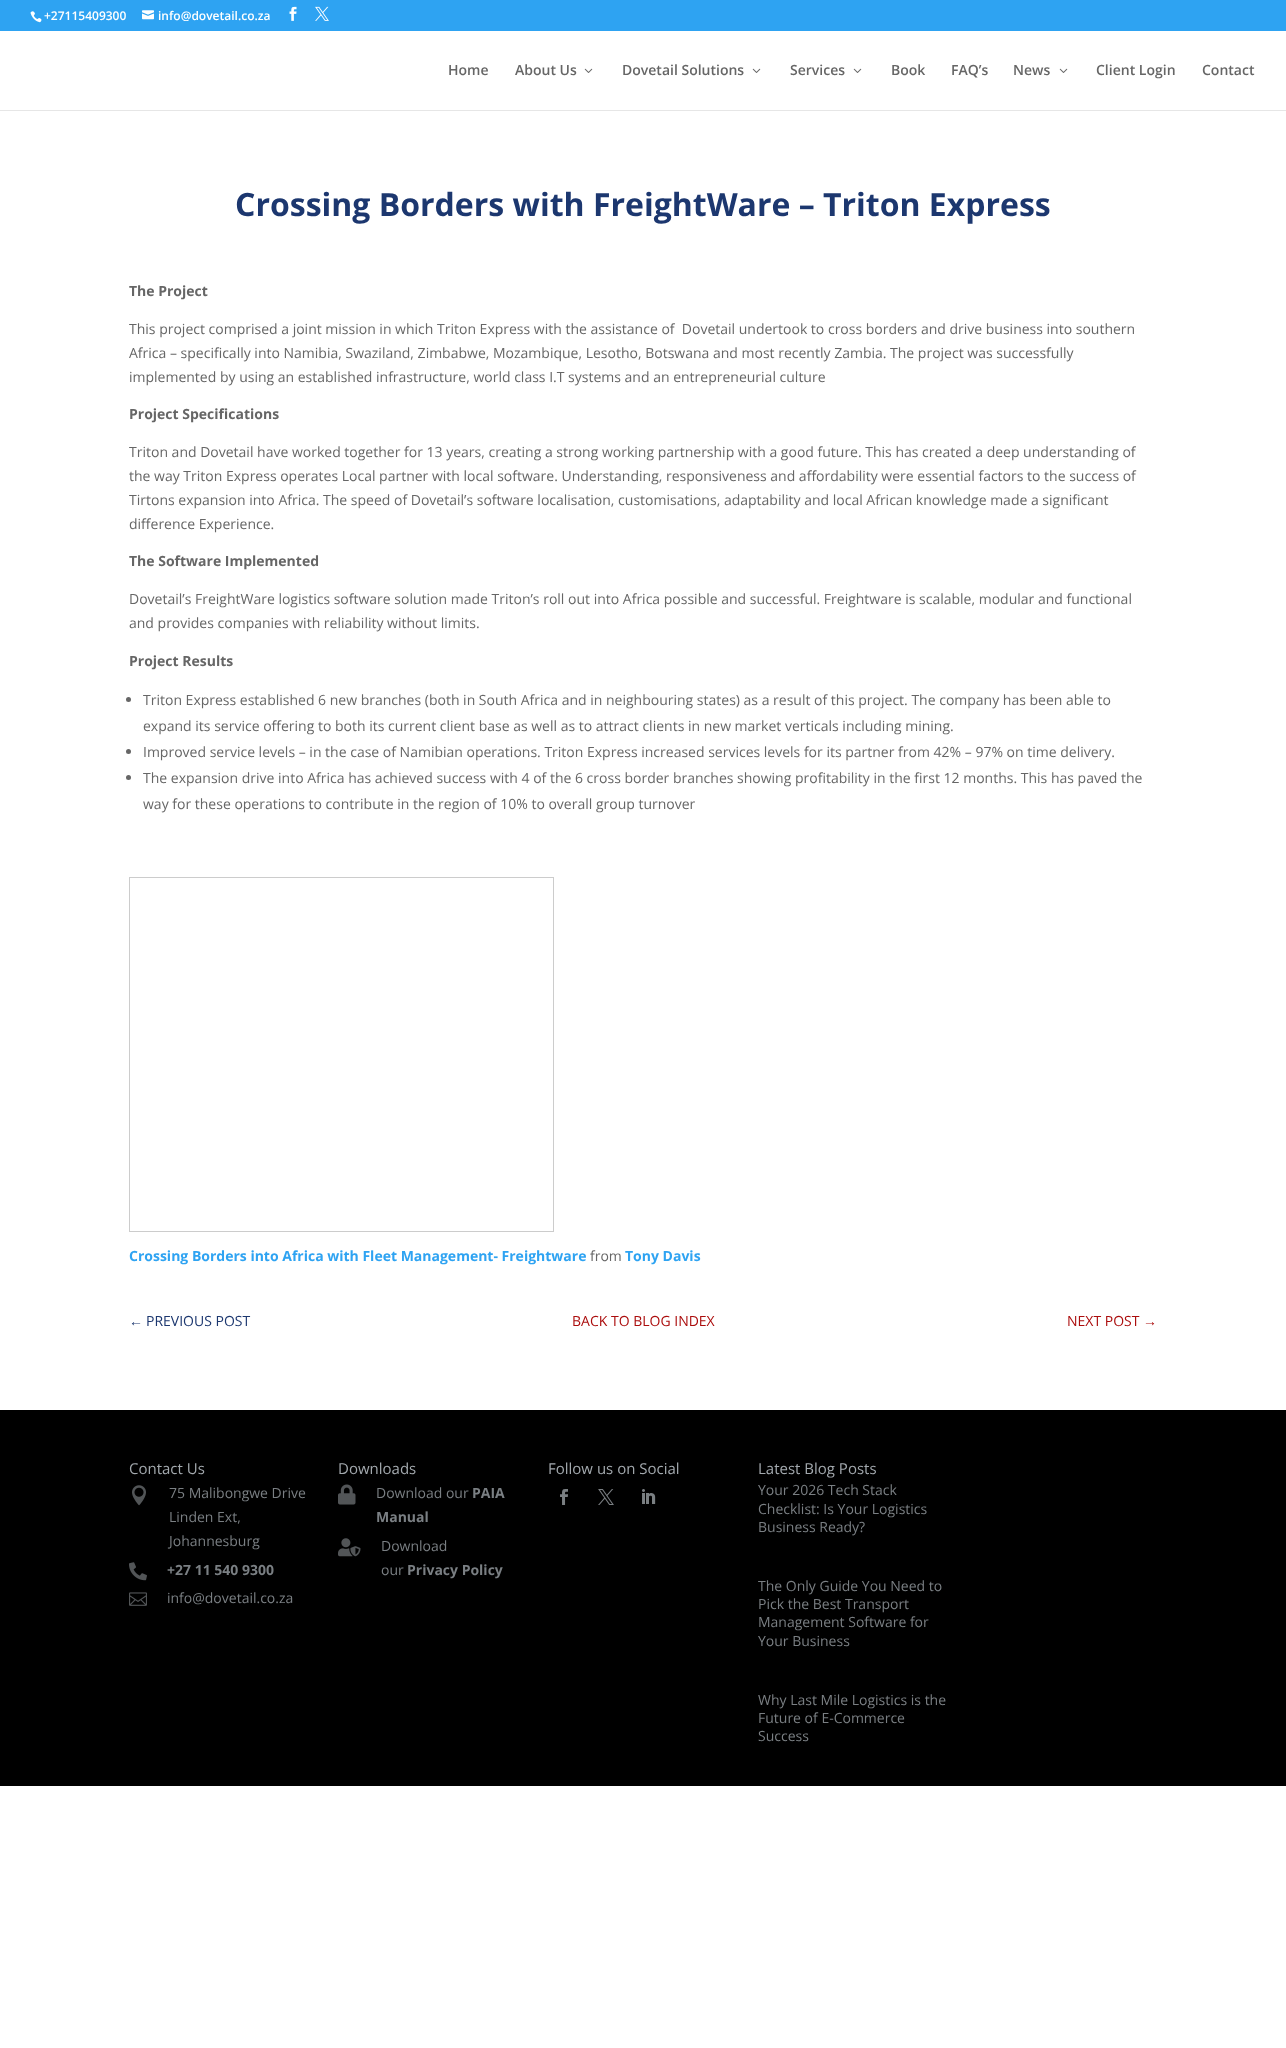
<!DOCTYPE html>
<meta charset="utf-8">
<style>body { margin: 0 } canvas { display: block }</style>
<canvas id="canvas" width="1286" height="2048"></canvas>
<img id="img1" src="img_01.png" hidden>
<img id="img2" src="img_02.png" hidden>
<img id="img3" src="img_03.png" hidden>
<img id="img4" src="img_04.png" hidden>
<img id="img5" src="img_05.png" hidden>
<img id="img6" src="img_06.png" hidden>
<img id="img7" src="img_07.png" hidden>
<img id="img8" src="img_08.png" hidden>
<img id="img9" src="img_09.png" hidden>
<img id="img10" src="img_10.png" hidden>
<img id="img11" src="img_11.png" hidden>
<img id="img12" src="img_12.png" hidden>
<img id="img13" src="img_13.png" hidden>
<script>
window.onload = function () {
	const canvas = document.getElementById("canvas");
	const ctx = canvas.getContext("2d");
	ctx.miterLimit = 4;
	ctx.fontKerning = "normal";
	function txt(s, x, y) {
		ctx.fillText(s, x, y);
	}
	function fill(x, y, w, h) {
		ctx.fillRect(x, y, w, h);
	}
	function img(id, x, y, w, h) {
		ctx.drawImage(document.getElementById(id), x, y, w, h);
	}

	ctx.fillStyle = "#FFFFFF";
	fill(0, 0, 1286, 2048);
	ctx.fillStyle = "#2EA3F2";
	fill(0, 0, 1286, 31);
	img("img1", 30, 11, 12, 12);
	img("img2", 142, 10, 12, 10);
	img("img3", 289, 6, 8, 15);
	img("img4", 315, 6, 14, 15);
	ctx.fillStyle = "#E6E6E6";
	fill(0, 110, 1286, 1);
	img("img5", 584, 68, 9, 5);
	img("img5", 752, 68, 9, 5);
	img("img5", 853, 68, 9, 5);
	img("img5", 1059, 68, 9, 5);
	ctx.fillStyle = "#666666";
	ctx.beginPath();
	ctx.arc(128.5, 699.5, 2.5, 0, Math.PI * 2);
	ctx.fill();
	ctx.beginPath();
	ctx.arc(128.5, 751.5, 2.5, 0, Math.PI * 2);
	ctx.fill();
	ctx.beginPath();
	ctx.arc(128.5, 777.5, 2.5, 0, Math.PI * 2);
	ctx.fill();
	ctx.strokeStyle = "#CCCCCC";
	ctx.strokeRect(129.5, 877.5, 424, 354);
	ctx.fillStyle = "#000000";
	fill(0, 1410, 1286, 376);
	img("img6", 132, 1485, 14, 21);
	img("img7", 129, 1562, 18, 19);
	img("img8", 129, 1592, 18, 14);
	img("img9", 338, 1484, 18, 21);
	img("img10", 338, 1538, 23, 19);
	img("img11", 560, 1489, 8, 16);
	img("img12", 598, 1489, 16, 16);
	img("img13", 642, 1489, 14, 15);
	ctx.font = "600 12px Open Sans";
	ctx.fillStyle = "#FFFFFF";
	txt("+27115409300", 44, 20);
	txt("info@dovetail.co.za", 158, 20);
	ctx.font = "600 14px Open Sans";
	ctx.fillStyle = "#666666";
	txt("Home", 448, 75);
	txt("About Us", 515, 75);
	txt("Dovetail Solutions", 622, 75);
	txt("Services", 790, 75);
	txt("Book", 891, 75);
	txt("FAQ’s", 951, 75);
	txt("News", 1013, 75);
	txt("Client Login", 1096, 75);
	txt("Contact", 1202, 75);
	ctx.font = "bold 32px Open Sans";
	ctx.fillStyle = "#1C376F";
	txt("Crossing Borders with FreightWare – Triton Express", 235, 216);
	ctx.font = "bold 14px Open Sans";
	ctx.fillStyle = "#666666";
	txt("The Project", 129, 296);
	ctx.font = "14px Open Sans";
	txt("This project comprised a joint mission in which Triton Express with the assistance of  Dovetail undertook to cross borders and drive business into southern", 129, 334);
	txt("Africa – specifically into Namibia, Swaziland, Zimbabwe, Mozambique, Lesotho, Botswana and most recently Zambia. The project was successfully", 129, 358);
	txt("implemented by using an established infrastructure, world class I.T systems and an entrepreneurial culture", 129, 382);
	ctx.font = "bold 14px Open Sans";
	txt("Project Specifications", 129, 419);
	ctx.font = "14px Open Sans";
	txt("Triton and Dovetail have worked together for 13 years, creating a strong working partnership with a good future. This has created a deep understanding of", 129, 457);
	txt("the way Triton Express operates Local partner with local software. Understanding, responsiveness and affordability were essential factors to the success of", 129, 481);
	txt("Tirtons expansion into Africa. The speed of Dovetail’s software localisation, customisations, adaptability and local African knowledge made a significant", 129, 505);
	txt("difference Experience.", 129, 529);
	ctx.font = "bold 14px Open Sans";
	txt("The Software Implemented", 129, 566);
	ctx.font = "14px Open Sans";
	txt("Dovetail’s FreightWare logistics software solution made Triton’s roll out into Africa possible and successful. Freightware is scalable, modular and functional", 129, 604);
	txt("and provides companies with reliability without limits.", 129, 628);
	ctx.font = "bold 14px Open Sans";
	txt("Project Results", 129, 666);
	ctx.font = "14px Open Sans";
	txt("Triton Express established 6 new branches (both in South Africa and in neighbouring states) as a result of this project. The company has been able to", 143, 705);
	txt("expand its service offering to both its current client base as well as to attract clients in new market verticals including mining.", 143, 731);
	txt("Improved service levels – in the case of Namibian operations. Triton Express increased services levels for its partner from 42% – 97% on time delivery.", 143, 757);
	txt("The expansion drive into Africa has achieved success with 4 of the 6 cross border branches showing profitability in the first 12 months. This has paved the", 143, 783);
	txt("way for these operations to contribute in the region of 10% to overall group turnover", 143, 809);
	ctx.font = "bold 14px Open Sans";
	ctx.fillStyle = "#2EA3F2";
	txt("Crossing Borders into Africa with Fleet Management- Freightware", 129, 1261);
	ctx.font = "14px Open Sans";
	ctx.fillStyle = "#666666";
	txt("from", 590, 1261);
	ctx.font = "bold 14px Open Sans";
	ctx.fillStyle = "#2EA3F2";
	txt("Tony Davis", 625, 1261);
	ctx.font = "14px Liberation Sans";
	ctx.fillStyle = "#1C376F";
	txt("←", 129, 1326);
	ctx.font = "14px Open Sans";
	txt("PREVIOUS POST", 146, 1326);
	ctx.fillStyle = "#AB0D0D";
	txt("BACK TO BLOG INDEX", 572, 1326);
	txt("NEXT POST", 1067, 1326);
	ctx.font = "14px Liberation Sans";
	txt("→", 1143, 1326);
	ctx.font = "15px Open Sans";
	ctx.fillStyle = "#A3A9AE";
	txt("Contact Us", 129, 1474);
	ctx.font = "14px Open Sans";
	ctx.fillStyle = "#7A7F83";
	txt("75 Malibongwe Drive", 169, 1498);
	txt("Linden Ext,", 169, 1522);
	txt("Johannesburg", 169, 1546);
	ctx.font = "bold 14px Open Sans";
	txt("+27 11 540 9300", 167, 1575);
	ctx.font = "14px Open Sans";
	txt("info@dovetail.co.za", 167, 1603);
	ctx.font = "15px Open Sans";
	ctx.fillStyle = "#A3A9AE";
	txt("Downloads", 338, 1474);
	ctx.font = "14px Open Sans";
	ctx.fillStyle = "#7A7F83";
	txt("Download our", 376, 1498);
	ctx.font = "bold 14px Open Sans";
	txt("PAIA", 472, 1498);
	txt("Manual", 376, 1522);
	ctx.font = "14px Open Sans";
	txt("Download", 381, 1551);
	txt("our", 381, 1575);
	ctx.font = "bold 14px Open Sans";
	txt("Privacy Policy", 407, 1575);
	ctx.font = "15px Open Sans";
	ctx.fillStyle = "#A3A9AE";
	txt("Follow us on Social", 548, 1474);
	txt("Latest Blog Posts", 758, 1474);
	ctx.font = "14px Open Sans";
	ctx.fillStyle = "#7A7F83";
	txt("Your 2026 Tech Stack", 758, 1495);
	txt("Checklist: Is Your Logistics", 758, 1514);
	txt("Business Ready?", 758, 1532);
	txt("The Only Guide You Need to", 758, 1591);
	txt("Pick the Best Transport", 758, 1609);
	txt("Management Software for", 758, 1627);
	txt("Your Business", 758, 1646);
	txt("Why Last Mile Logistics is the", 758, 1705);
	txt("Future of E-Commerce", 758, 1723);
	txt("Success", 758, 1741);
};
</script>
